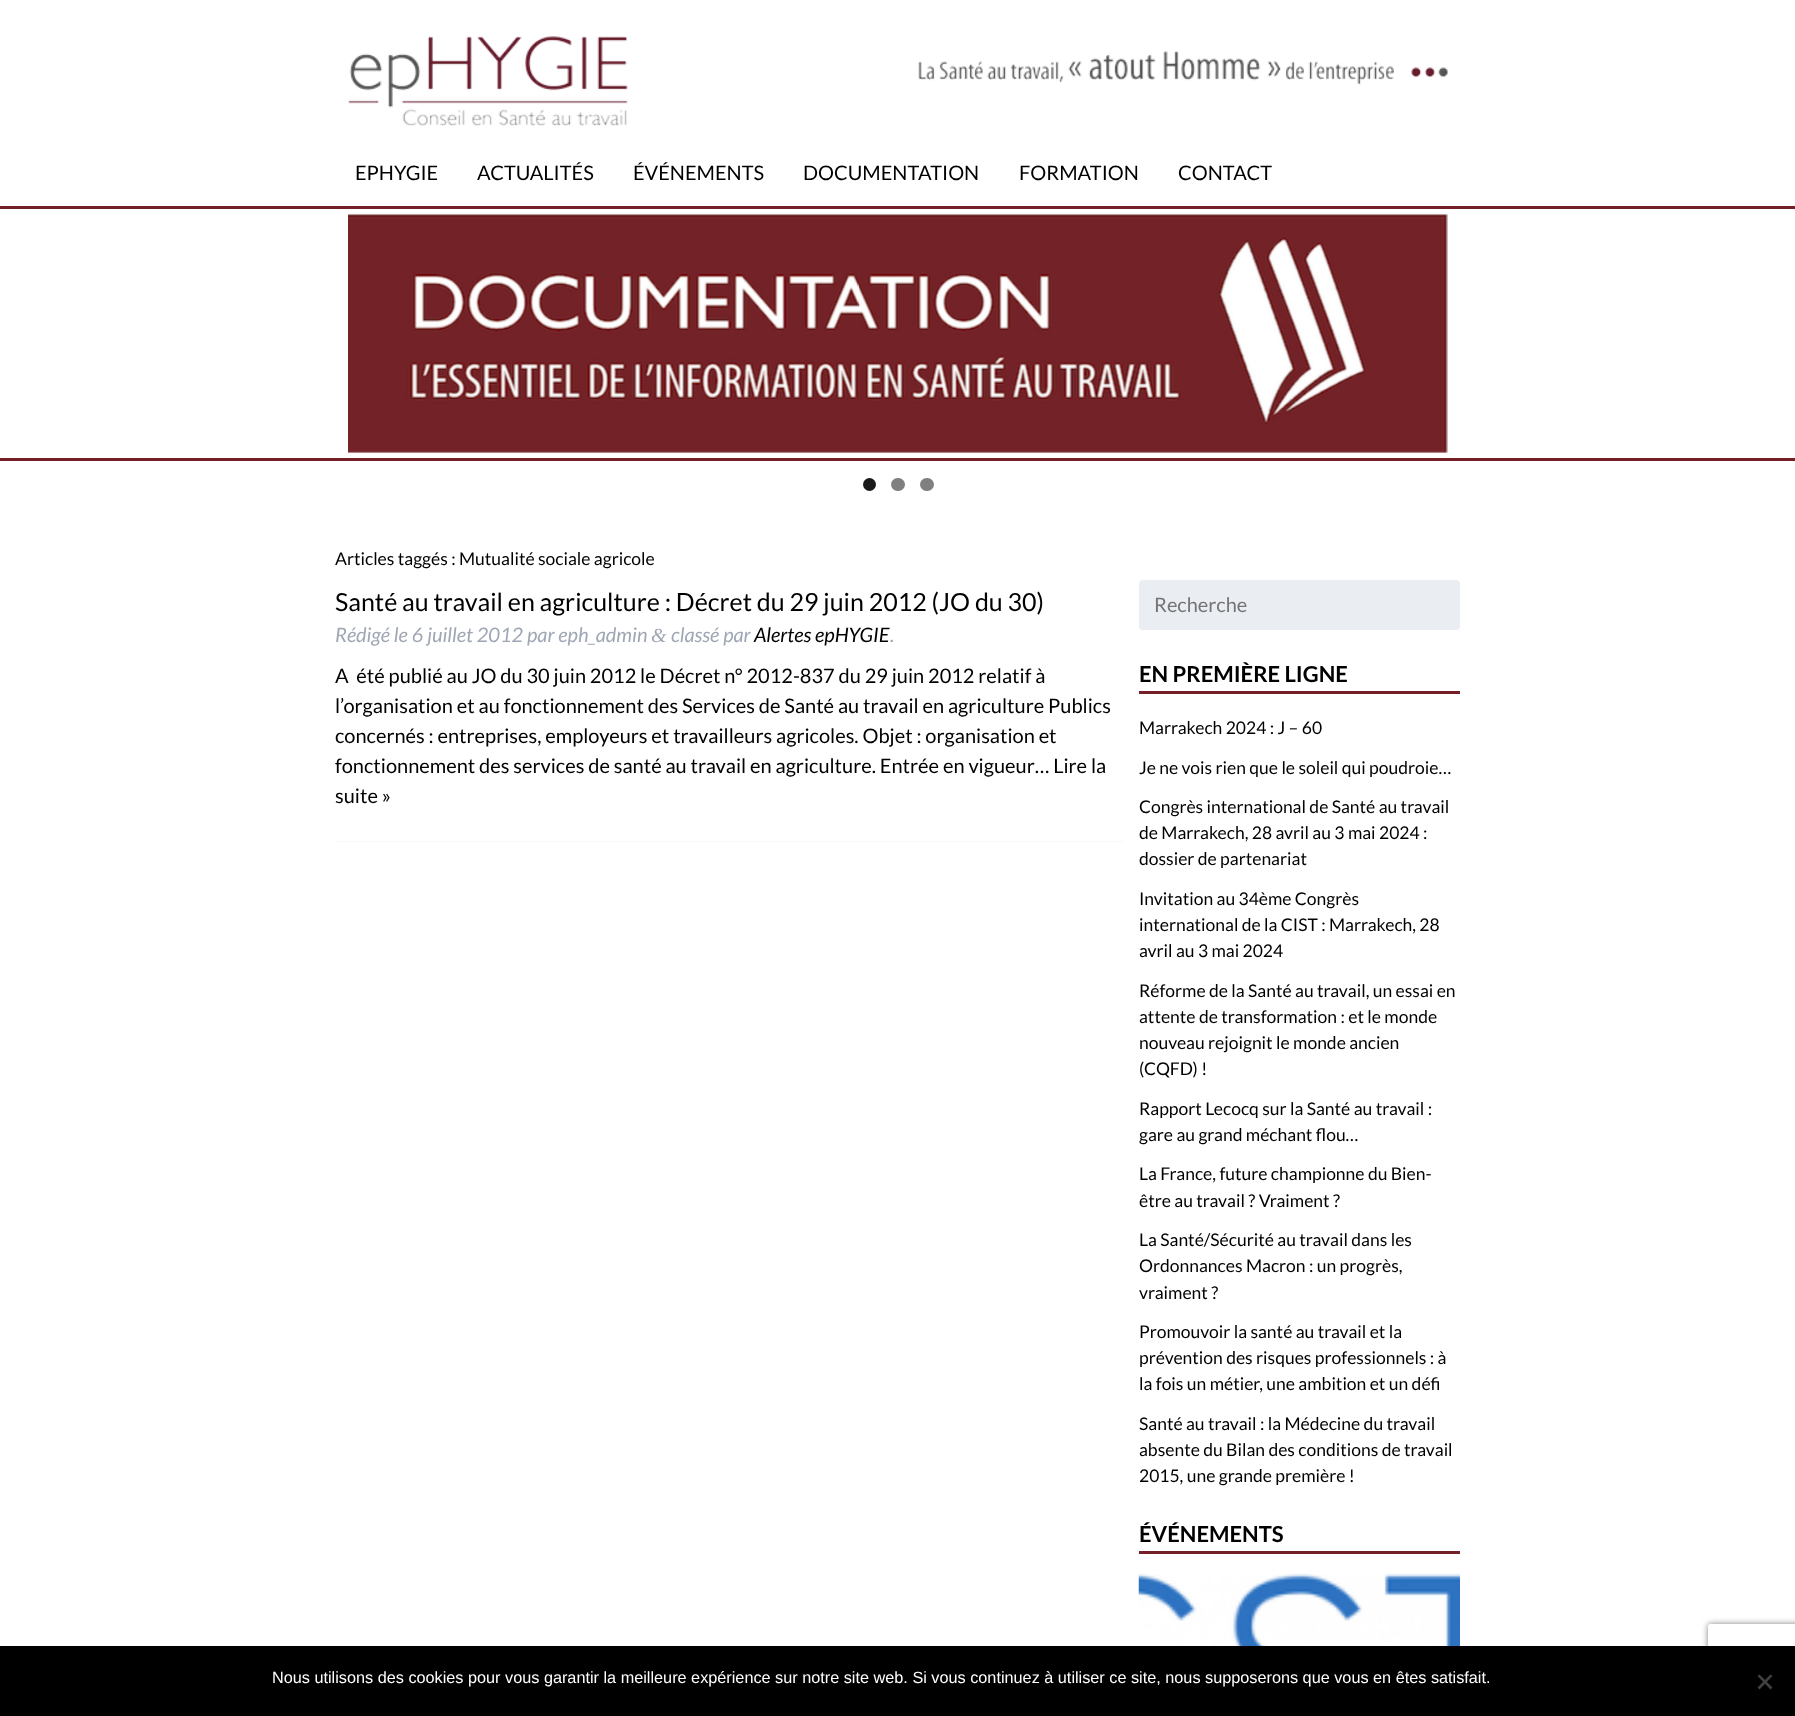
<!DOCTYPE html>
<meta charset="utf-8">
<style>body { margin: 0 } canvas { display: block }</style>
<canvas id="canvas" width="1795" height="1716"></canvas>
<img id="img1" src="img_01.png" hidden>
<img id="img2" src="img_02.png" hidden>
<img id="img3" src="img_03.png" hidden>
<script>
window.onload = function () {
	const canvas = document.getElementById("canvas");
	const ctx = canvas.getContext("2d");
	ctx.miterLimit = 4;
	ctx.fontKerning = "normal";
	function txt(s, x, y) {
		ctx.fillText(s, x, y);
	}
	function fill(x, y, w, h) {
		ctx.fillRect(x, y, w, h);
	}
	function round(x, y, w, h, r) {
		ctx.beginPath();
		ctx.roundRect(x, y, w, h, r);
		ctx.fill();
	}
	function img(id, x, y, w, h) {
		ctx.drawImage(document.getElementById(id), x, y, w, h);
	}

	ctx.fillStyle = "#FFFFFF";
	fill(0, 0, 1795, 1716);
	img("img1", 348, 36, 1100, 90);
	ctx.fillStyle = "#752028";
	fill(0, 206, 1795, 3);
	fill(0, 458, 1795, 3);
	img("img2", 348, 214, 1100, 239);
	ctx.fillStyle = "#1A1A1A";
	ctx.beginPath();
	ctx.arc(869.5, 484.5, 6.5, 0, Math.PI * 2);
	ctx.fill();
	ctx.fillStyle = "#808080";
	round(891, 478, 14, 13, 6.5);
	round(920, 478, 14, 13, 6.5);
	ctx.fillStyle = "#F8F9FA";
	fill(335, 841, 789, 1);
	ctx.fillStyle = "#EAEDF2";
	round(1139, 580, 321, 50, 4);
	ctx.fillStyle = "#752028";
	fill(1139, 691, 321, 3);
	fill(1139, 1551, 321, 3);
	img("img3", 1138, 1573, 322, 73);
	ctx.save();
	ctx.beginPath();
	ctx.moveTo(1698, 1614);
	ctx.lineTo(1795, 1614);
	ctx.lineTo(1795, 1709);
	ctx.lineTo(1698, 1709);
	ctx.closePath();
	ctx.moveTo(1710.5, 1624);
	ctx.lineTo(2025.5, 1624);
	ctx.bezierCurveTo(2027, 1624, 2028, 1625, 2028, 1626.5);
	ctx.lineTo(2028, 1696.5);
	ctx.bezierCurveTo(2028, 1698, 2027, 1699, 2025.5, 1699);
	ctx.lineTo(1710.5, 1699);
	ctx.bezierCurveTo(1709, 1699, 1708, 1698, 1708, 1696.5);
	ctx.lineTo(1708, 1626.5);
	ctx.bezierCurveTo(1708, 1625, 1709, 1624, 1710.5, 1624);
	ctx.closePath();
	ctx.clip("evenodd");
	ctx.fillStyle = "#808080";
	ctx.filter = "blur(3px)";
	ctx.beginPath();
	ctx.roundRect(1708, 1624, 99, 75, 2.5);
	ctx.fill();
	ctx.filter = "none";
	ctx.restore();
	ctx.fillStyle = "#000000";
	fill(0, 1646, 1795, 70);
	ctx.fillStyle = "#404040";
	ctx.beginPath();
	ctx.moveTo(1770.5, 1674.5);
	ctx.lineTo(1772.5, 1676);
	ctx.lineTo(1759.5, 1689.5);
	ctx.lineTo(1757.5, 1687.5);
	ctx.closePath();
	ctx.fill();
	ctx.beginPath();
	ctx.moveTo(1757.5, 1676);
	ctx.lineTo(1759.5, 1674.5);
	ctx.lineTo(1772.5, 1687.5);
	ctx.lineTo(1770.5, 1689.5);
	ctx.closePath();
	ctx.fill();
	ctx.font = "20px Lato";
	ctx.fillStyle = "#000000";
	txt("EPHYGIE", 355, 180);
	txt("ACTUALITÉS", 477, 180);
	txt("ÉVÉNEMENTS", 633, 180);
	txt("DOCUMENTATION", 803, 180);
	txt("FORMATION", 1019, 180);
	txt("CONTACT", 1178, 180);
	ctx.font = "17.5px Lato";
	txt("Articles taggés : Mutualité sociale agricole", 335, 565);
	ctx.font = "25px Lato";
	txt("Santé au travail en agriculture : Décret du 29 juin 2012 (JO du 30)", 335, 611);
	ctx.font = "italic 20px Lato";
	ctx.fillStyle = "#9FA6B4";
	txt("Rédigé le 6 juillet 2012 par eph_admin", 335, 642);
	ctx.font = "italic 20px Liberation Serif";
	txt("&", 651, 642);
	ctx.font = "italic 20px Lato";
	txt("classé par", 671, 642);
	ctx.fillStyle = "#000000";
	txt("Alertes epHYGIE", 754, 642);
	ctx.fillStyle = "#9FA6B4";
	txt(".", 890, 642);
	ctx.font = "20px Lato";
	ctx.fillStyle = "#000000";
	txt("A  été publié au JO du 30 juin 2012 le Décret n° 2012-837 du 29 juin 2012 relatif à", 335, 683);
	txt("l’organisation et au fonctionnement des Services de Santé au travail en agriculture Publics", 335, 713);
	txt("concernés : entreprises, employeurs et travailleurs agricoles. Objet : organisation et", 335, 743);
	txt("fonctionnement des services de santé au travail en agriculture. Entrée en vigueur… Lire la", 335, 773);
	txt("suite »", 335, 803);
	ctx.fillStyle = "#757575";
	txt("Recherche", 1154, 612);
	ctx.font = "bold 22px Lato";
	ctx.fillStyle = "#000000";
	txt("EN PREMIÈRE LIGNE", 1139, 682);
	ctx.font = "17.5px Lato";
	txt("Marrakech 2024 : J – 60", 1139, 734);
	txt("Je ne vois rien que le soleil qui poudroie…", 1139, 774);
	txt("Congrès international de Santé au travail", 1139, 813);
	txt("de Marrakech, 28 avril au 3 mai 2024 :", 1139, 839);
	txt("dossier de partenariat", 1139, 865);
	txt("Invitation au 34ème Congrès", 1139, 905);
	txt("international de la CIST : Marrakech, 28", 1139, 931);
	txt("avril au 3 mai 2024", 1139, 957);
	txt("Réforme de la Santé au travail, un essai en", 1139, 997);
	txt("attente de transformation : et le monde", 1139, 1023);
	txt("nouveau rejoignit le monde ancien", 1139, 1049);
	txt("(CQFD) !", 1139, 1075);
	txt("Rapport Lecocq sur la Santé au travail :", 1139, 1115);
	txt("gare au grand méchant flou…", 1139, 1141);
	txt("La France, future championne du Bien-", 1139, 1180);
	txt("être au travail ? Vraiment ?", 1139, 1207);
	txt("La Santé/Sécurité au travail dans les", 1139, 1246);
	txt("Ordonnances Macron : un progrès,", 1139, 1272);
	txt("vraiment ?", 1139, 1299);
	txt("Promouvoir la santé au travail et la", 1139, 1338);
	txt("prévention des risques professionnels : à", 1139, 1364);
	txt("la fois un métier, une ambition et un défi", 1139, 1390);
	txt("Santé au travail : la Médecine du travail", 1139, 1430);
	txt("absente du Bilan des conditions de travail", 1139, 1456);
	txt("2015, une grande première !", 1139, 1482);
	ctx.font = "bold 22px Lato";
	txt("ÉVÉNEMENTS", 1139, 1542);
	ctx.font = "16.25px Liberation Sans";
	ctx.fillStyle = "#FFFFFF";
	txt("Nous utilisons des cookies pour vous garantir la meilleure expérience sur notre site web. Si vous continuez à utiliser ce site, nous supposerons que vous en êtes satisfait.", 272, 1683);
};
</script>
